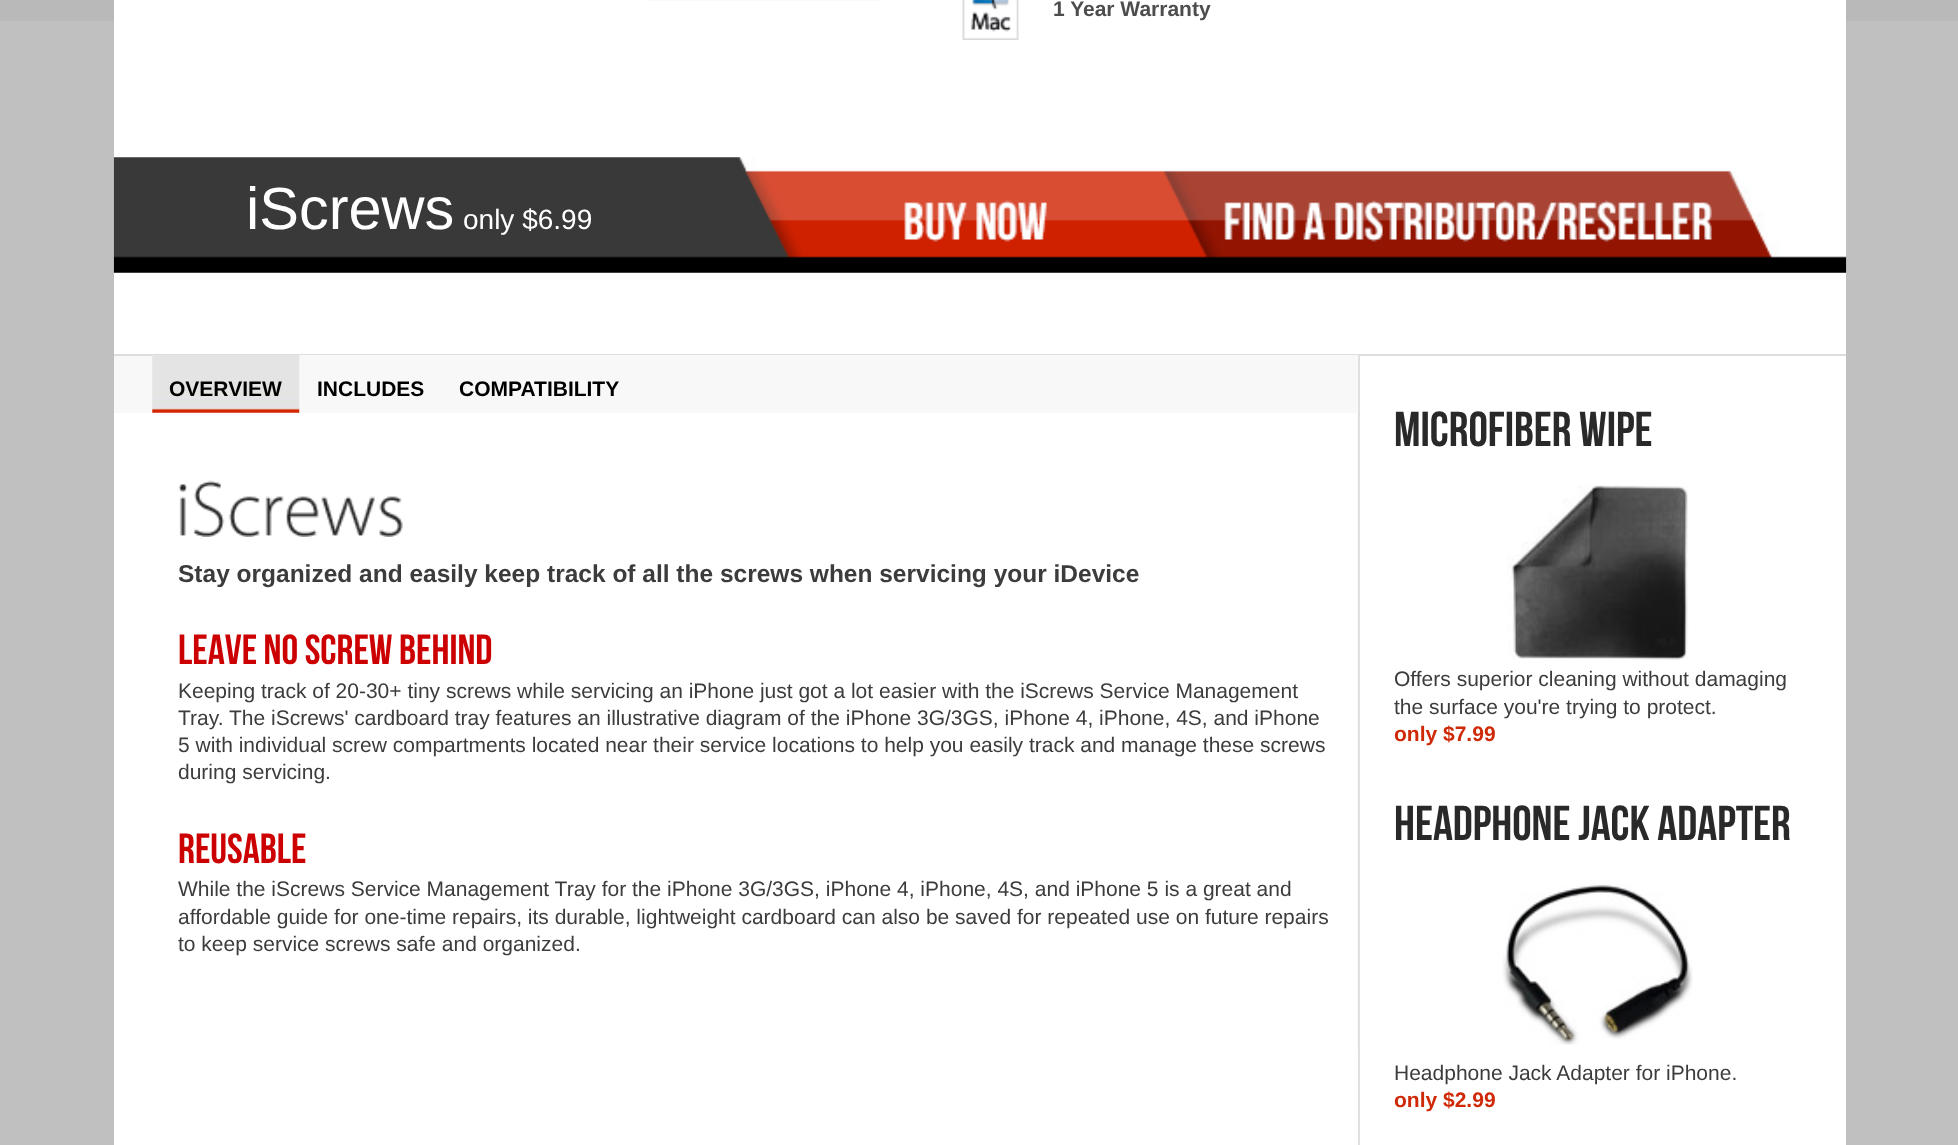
<!DOCTYPE html>
<meta charset="utf-8">
<style>body { margin: 0 } canvas { display: block }</style>
<canvas id="canvas" width="1958" height="1145"></canvas>
<img id="img1" src="img_01.png" hidden>
<img id="img2" src="img_02.png" hidden>
<img id="img3" src="img_03.png" hidden>
<img id="img4" src="img_04.png" hidden>
<img id="img5" src="img_05.png" hidden>
<img id="img6" src="img_06.png" hidden>
<img id="img7" src="img_07.png" hidden>
<script>
window.onload = function () {
	const canvas = document.getElementById("canvas");
	const ctx = canvas.getContext("2d");
	ctx.miterLimit = 4;
	ctx.fontKerning = "normal";
	function txt(s, x, y) {
		ctx.fillText(s, x, y);
	}
	function fill(x, y, w, h) {
		ctx.fillRect(x, y, w, h);
	}
	function img(id, x, y, w, h) {
		ctx.drawImage(document.getElementById(id), x, y, w, h);
	}

	ctx.fillStyle = "#C0C0C0";
	fill(0, 0, 1958, 1145);
	ctx.fillStyle = "#B9B9B9";
	fill(0, 0, 1958, 21);
	ctx.fillStyle = "#FFFFFF";
	fill(114, 0, 1732, 1145);
	ctx.fillStyle = "#FAFAFA";
	fill(648, 0, 233, 1);
	img("img1", 962, 0, 57, 40);
	img("img2", 113, 157, 1734, 116);
	ctx.fillStyle = "#F8F8F8";
	fill(114, 356, 38, 57);
	ctx.fillStyle = "#DEDEDE";
	fill(114, 354, 1732, 2);
	img("img3", 152, 355, 1206, 700);
	ctx.fillStyle = "#F8F8F8";
	fill(152, 355, 1205, 58);
	img("img4", 152, 355, 148, 58);
	img("img5", 178, 480, 225, 57);
	ctx.fillStyle = "#E0E0E0";
	fill(1358, 355, 2, 790);
	img("img6", 1507, 485, 182, 175);
	img("img7", 1502, 884, 191, 161);
	ctx.font = "bold 21px Liberation Sans";
	ctx.fillStyle = "#4D4D4D";
	txt("1 Year Warranty", 1053, 16);
	ctx.font = "59.5px Liberation Sans";
	ctx.fillStyle = "#FFFFFF";
	txt("iScrews", 246, 229);
	ctx.font = "28px Liberation Sans";
	txt("only $6.99", 463, 229);
	ctx.font = "bold 21px Liberation Sans";
	ctx.fillStyle = "#000000";
	txt("OVERVIEW", 169, 396);
	txt("INCLUDES", 317, 396);
	txt("COMPATIBILITY", 459, 396);
	ctx.font = "bold 24.5px Liberation Sans";
	ctx.fillStyle = "#3C3C3C";
	txt("Stay organized and easily keep track of all the screws when servicing your iDevice", 178, 582);
	ctx.font = "42px Bebas Neue";
	ctx.fillStyle = "#CC0000";
	txt("Leave No Screw Behind", 178, 664);
	ctx.font = "21px Liberation Sans";
	ctx.fillStyle = "#3C3C3C";
	txt("Keeping track of 20-30+ tiny screws while servicing an iPhone just got a lot easier with the iScrews Service Management", 178, 698);
	txt("Tray. The iScrews' cardboard tray features an illustrative diagram of the iPhone 3G/3GS, iPhone 4, iPhone, 4S, and iPhone", 178, 725);
	txt("5 with individual screw compartments located near their service locations to help you easily track and manage these screws", 178, 752);
	txt("during servicing.", 178, 779);
	ctx.font = "42px Bebas Neue";
	ctx.fillStyle = "#CC0000";
	txt("Reusable", 178, 863);
	ctx.font = "21px Liberation Sans";
	ctx.fillStyle = "#3C3C3C";
	txt("While the iScrews Service Management Tray for the iPhone 3G/3GS, iPhone 4, iPhone, 4S, and iPhone 5 is a great and", 178, 896);
	txt("affordable guide for one-time repairs, its durable, lightweight cardboard can also be saved for repeated use on future repairs", 178, 924);
	txt("to keep service screws safe and organized.", 178, 951);
	ctx.font = "49px Bebas Neue";
	ctx.fillStyle = "#292929";
	txt("Microfiber Wipe", 1394, 446);
	ctx.font = "21px Liberation Sans";
	ctx.fillStyle = "#3C3C3C";
	txt("Offers superior cleaning without damaging", 1394, 686);
	txt("the surface you're trying to protect.", 1394, 714);
	ctx.font = "bold 21px Liberation Sans";
	ctx.fillStyle = "#D02908";
	txt("only $7.99", 1394, 741);
	ctx.font = "49px Bebas Neue";
	ctx.fillStyle = "#292929";
	txt("Headphone Jack Adapter", 1394, 840);
	ctx.font = "21px Liberation Sans";
	ctx.fillStyle = "#3C3C3C";
	txt("Headphone Jack Adapter for iPhone.", 1394, 1080);
	ctx.font = "bold 21px Liberation Sans";
	ctx.fillStyle = "#D02908";
	txt("only $2.99", 1394, 1107);
};
</script>
